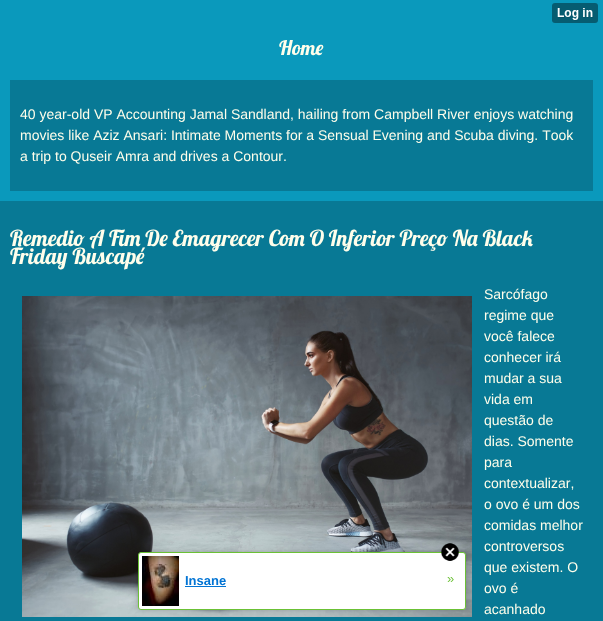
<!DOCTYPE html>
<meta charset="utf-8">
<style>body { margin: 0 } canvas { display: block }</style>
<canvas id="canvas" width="603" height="621"></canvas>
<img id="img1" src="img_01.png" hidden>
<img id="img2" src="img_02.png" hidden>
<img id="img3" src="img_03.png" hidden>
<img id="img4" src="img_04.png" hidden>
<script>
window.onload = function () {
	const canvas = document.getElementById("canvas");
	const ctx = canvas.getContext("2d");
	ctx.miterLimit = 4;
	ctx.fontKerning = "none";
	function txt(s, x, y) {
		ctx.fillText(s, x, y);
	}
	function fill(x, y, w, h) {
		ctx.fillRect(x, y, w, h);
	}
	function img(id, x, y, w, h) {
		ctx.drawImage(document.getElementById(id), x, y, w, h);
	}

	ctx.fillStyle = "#0A99BC";
	fill(0, 0, 603, 621);
	img("img1", 552, 3, 46, 20);
	ctx.fillStyle = "#087995";
	fill(10, 80, 583, 111);
	fill(0, 201, 603, 420);
	img("img2", 22, 296, 450, 321);
	ctx.fillStyle = "rgba(0, 0, 0, 0.2)";
	ctx.filter = "blur(2.5px)";
	ctx.beginPath();
	ctx.roundRect(138, 552, 328, 58, 3);
	ctx.fill();
	ctx.filter = "none";
	ctx.fillStyle = "#FFFFFF";
	ctx.beginPath();
	ctx.roundRect(138.5, 552.5, 327, 57, 2.5);
	ctx.fill();
	ctx.strokeStyle = "#6BC135";
	ctx.stroke();
	img("img3", 441, 543, 18, 18);
	img("img4", 142, 556, 37, 50);
	ctx.fillStyle = "#0274D4";
	fill(185, 586, 41, 1);
	ctx.font = "20px Lobster";
	ctx.fillStyle = "#FFFEEB";
	txt("Home", 279, 55);
	ctx.font = "14px Liberation Sans";
	txt("40 year-old VP Accounting Jamal Sandland, hailing from Campbell River enjoys watching", 20, 119);
	txt("movies like Aziz Ansari: Intimate Moments for a Sensual Evening and Scuba diving. Took", 20, 140);
	txt("a trip to Quseir Amra and drives a Contour.", 20, 161);
	ctx.font = "22px Lobster";
	txt("Remedio A Fim De Emagrecer Com O Inferior Preço Na Black", 10, 246);
	txt("Friday Buscapé", 10, 264);
	ctx.font = "14px Liberation Sans";
	txt("Sarcófago", 484, 299);
	txt("regime que", 484, 320);
	txt("você falece", 484, 341);
	txt("conhecer irá", 484, 362);
	txt("mudar a sua", 484, 383);
	txt("vida em", 484, 404);
	txt("questão de", 484, 425);
	txt("dias. Somente", 484, 446);
	txt("para", 484, 467);
	txt("contextualizar,", 484, 488);
	txt("o ovo é um dos", 484, 509);
	txt("comidas melhor", 484, 530);
	txt("controversos", 484, 551);
	txt("que existem. O", 484, 572);
	txt("ovo é", 484, 593);
	txt("acanhado", 484, 614);
	ctx.font = "bold 13px Liberation Sans";
	ctx.fillStyle = "#0274D4";
	txt("Insane", 185, 585);
	ctx.font = "13px Liberation Sans";
	ctx.fillStyle = "#6BC135";
	txt("»", 447, 583);
};
</script>
